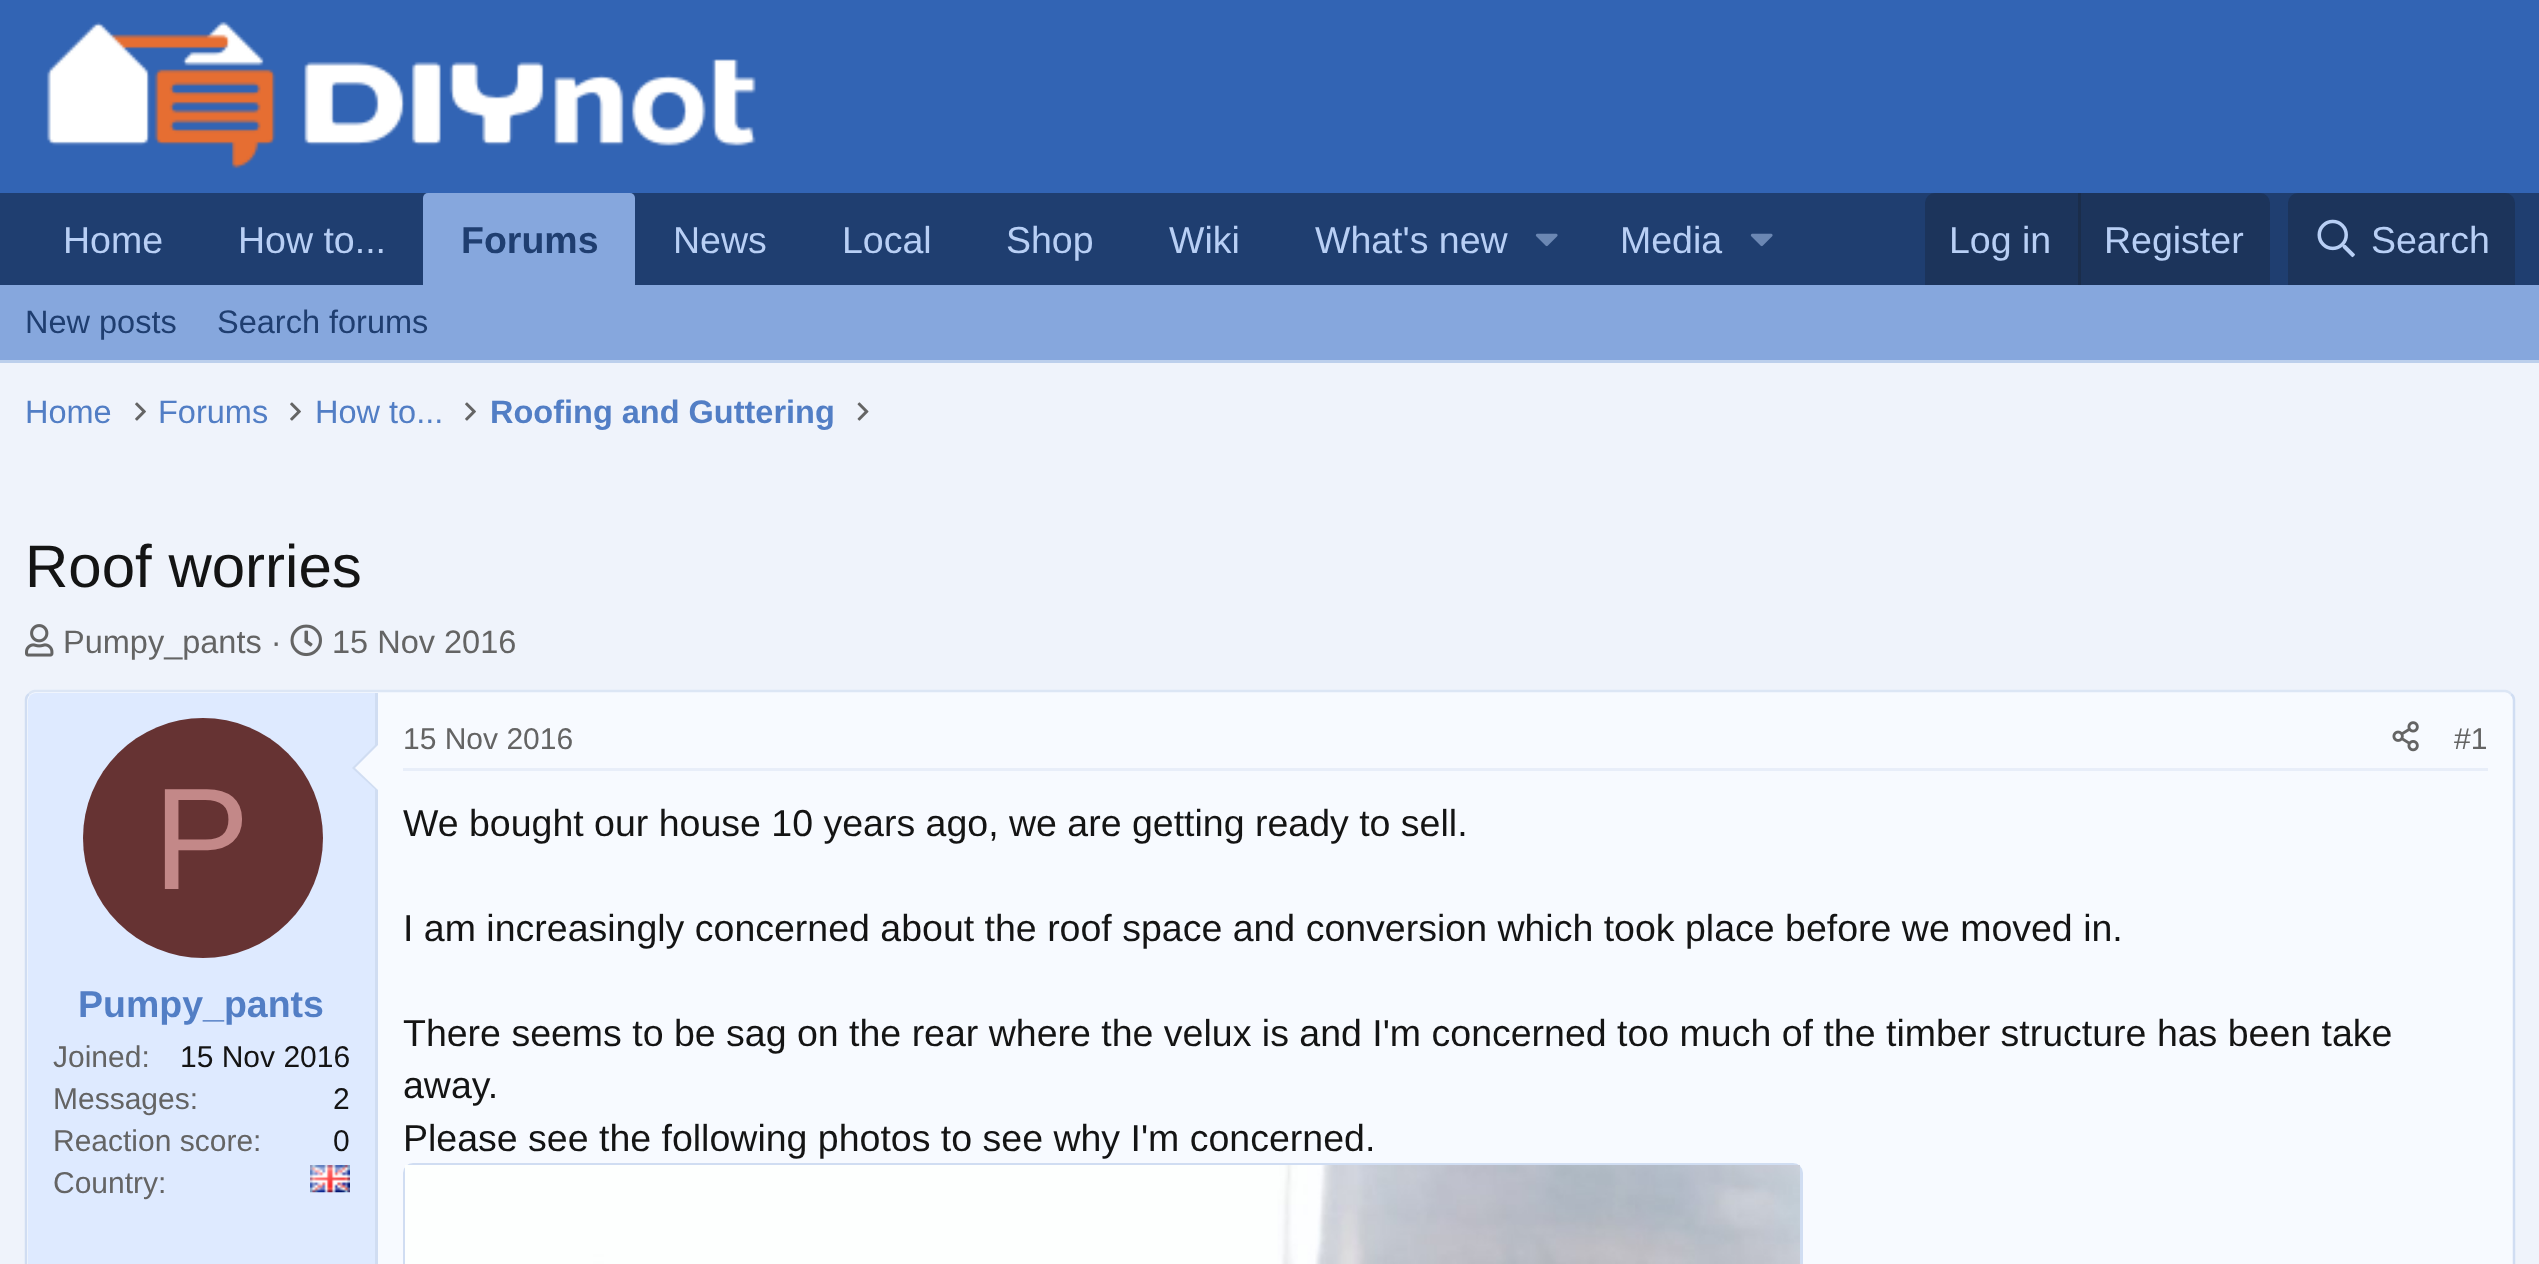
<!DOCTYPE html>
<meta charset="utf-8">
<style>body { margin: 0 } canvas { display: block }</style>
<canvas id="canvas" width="2539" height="1264"></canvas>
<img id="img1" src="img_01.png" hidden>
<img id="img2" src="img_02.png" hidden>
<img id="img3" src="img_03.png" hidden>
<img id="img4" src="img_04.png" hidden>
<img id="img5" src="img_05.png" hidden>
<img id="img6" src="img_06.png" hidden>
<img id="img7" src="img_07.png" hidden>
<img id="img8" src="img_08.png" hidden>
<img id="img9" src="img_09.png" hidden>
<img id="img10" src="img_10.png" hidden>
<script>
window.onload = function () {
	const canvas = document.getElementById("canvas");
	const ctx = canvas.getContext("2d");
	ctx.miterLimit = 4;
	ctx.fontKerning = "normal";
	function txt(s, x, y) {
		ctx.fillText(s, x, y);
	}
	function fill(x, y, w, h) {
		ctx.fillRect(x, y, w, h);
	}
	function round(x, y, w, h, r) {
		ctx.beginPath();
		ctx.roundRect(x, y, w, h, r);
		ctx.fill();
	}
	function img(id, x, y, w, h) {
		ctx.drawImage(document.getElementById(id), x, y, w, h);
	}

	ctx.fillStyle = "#EFF3FB";
	fill(0, 0, 2539, 1264);
	ctx.fillStyle = "#3264B4";
	fill(0, 0, 2539, 193);
	img("img1", 46, 21, 710, 148);
	ctx.fillStyle = "#1F3E70";
	fill(0, 193, 2539, 92);
	ctx.fillStyle = "#86A7DD";
	ctx.beginPath();
	ctx.roundRect(423, 193, 212, 92, [5, 5, 0, 0]);
	ctx.fill();
	img("img2", 1535, 233, 23, 14);
	img("img2", 1750, 233, 23, 14);
	ctx.fillStyle = "#1C345B";
	ctx.beginPath();
	ctx.roundRect(1925, 193, 345, 92, [10, 10, 0, 0]);
	ctx.fill();
	ctx.fillStyle = "#1A2D4B";
	fill(2078, 193, 3, 92);
	ctx.fillStyle = "#1C345B";
	ctx.beginPath();
	ctx.roundRect(2288, 193, 227, 92, [10, 10, 0, 0]);
	ctx.fill();
	img("img3", 2317, 219, 38, 39);
	ctx.fillStyle = "#86A7DD";
	fill(0, 285, 2539, 75);
	ctx.fillStyle = "#BCCFEC";
	fill(0, 360, 2539, 3);
	img("img4", 135, 402, 11, 19);
	img("img4", 290, 402, 11, 19);
	img("img4", 465, 402, 11, 19);
	img("img5", 857, 402, 12, 19);
	img("img6", 25, 624, 29, 33);
	img("img7", 290, 624, 32, 33);
	ctx.fillStyle = "#F7FAFF";
	round(25, 690, 2490, 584, 10);
	ctx.beginPath();
	ctx.moveTo(29, 694);
	ctx.bezierCurveTo(30.5, 692, 32.5, 691, 35, 691);
	ctx.lineTo(2505, 691);
	ctx.bezierCurveTo(2507.5, 691, 2509.5, 692, 2511, 694);
	ctx.strokeStyle = "#DCE6F5";
	ctx.lineWidth = 2.5;
	ctx.stroke();
	ctx.beginPath();
	ctx.moveTo(2511, 694);
	ctx.bezierCurveTo(2513, 695.5, 2514, 697.5, 2514, 700);
	ctx.lineTo(2514, 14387.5);
	ctx.bezierCurveTo(2514, 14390, 2513, 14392, 2511, 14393.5);
	ctx.strokeStyle = "#D0DDF2";
	ctx.stroke();
	ctx.beginPath();
	ctx.moveTo(29, 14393.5);
	ctx.bezierCurveTo(27, 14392, 26, 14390, 26, 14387.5);
	ctx.lineTo(26, 700);
	ctx.bezierCurveTo(26, 697.5, 27, 695.5, 29, 694);
	ctx.stroke();
	ctx.fillStyle = "#DEEAFF";
	ctx.beginPath();
	ctx.moveTo(36, 693);
	ctx.lineTo(378, 693);
	ctx.lineTo(378, 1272);
	ctx.lineTo(36, 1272);
	ctx.bezierCurveTo(31.5, 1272, 28, 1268.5, 28, 1264);
	ctx.lineTo(28, 701);
	ctx.bezierCurveTo(28, 696.5, 31.5, 693, 36, 693);
	ctx.closePath();
	ctx.fill();
	ctx.fillStyle = "#D0DDF2";
	fill(375, 693, 3, 571);
	ctx.beginPath();
	ctx.moveTo(378, 742);
	ctx.lineTo(378, 792);
	ctx.lineTo(352, 768);
	ctx.closePath();
	ctx.fill();
	ctx.fillStyle = "#F7FAFF";
	ctx.beginPath();
	ctx.moveTo(378, 745);
	ctx.lineTo(378, 790);
	ctx.lineTo(355, 768);
	ctx.closePath();
	ctx.fill();
	ctx.fillStyle = "#663333";
	ctx.beginPath();
	ctx.arc(203, 838, 120, 0, Math.PI * 2);
	ctx.fill();
	img("img8", 310, 1165, 40, 28);
	ctx.fillStyle = "#E8EEF9";
	fill(403, 768, 2085, 3);
	img("img9", 2392, 721, 27, 31);
	ctx.beginPath();
	ctx.roundRect(404.5, 1164.5, 1397, 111, 8.5);
	ctx.lineWidth = 3;
	ctx.stroke();
	img("img10", 405, 1165, 1395, 99);
	ctx.font = "37.5px Liberation Sans";
	ctx.fillStyle = "#B8CFF5";
	txt("Home", 63, 253);
	txt("How to...", 238, 253);
	ctx.font = "bold 37.5px Liberation Sans";
	ctx.fillStyle = "#1F3E70";
	txt("Forums", 461, 253);
	ctx.font = "37.5px Liberation Sans";
	ctx.fillStyle = "#B8CFF5";
	txt("News", 673, 253);
	txt("Local", 842, 253);
	txt("Shop", 1006, 253);
	txt("Wiki", 1169, 253);
	txt("What's new", 1315, 253);
	txt("Media", 1620, 253);
	txt("Log in", 1949, 253);
	txt("Register", 2104, 253);
	txt("Search", 2371, 253);
	ctx.font = "32.5px Liberation Sans";
	ctx.fillStyle = "#1F3E70";
	txt("New posts", 25, 333);
	txt("Search forums", 217, 333);
	ctx.fillStyle = "#527EC5";
	txt("Home", 25, 423);
	txt("Forums", 158, 423);
	txt("How to...", 315, 423);
	ctx.font = "bold 32.5px Liberation Sans";
	txt("Roofing and Guttering", 490, 423);
	ctx.font = "60px Liberation Sans";
	ctx.fillStyle = "#141414";
	txt("Roof worries", 25, 587);
	ctx.font = "32.5px Liberation Sans";
	ctx.fillStyle = "#646464";
	txt("Pumpy_pants ·", 63, 653);
	txt("15 Nov 2016", 332, 653);
	ctx.font = "145px Liberation Sans";
	ctx.fillStyle = "#C38888";
	txt("P", 153, 889);
	ctx.font = "bold 37.5px Liberation Sans";
	ctx.fillStyle = "#527EC5";
	txt("Pumpy_pants", 78, 1017);
	ctx.font = "30px Liberation Sans";
	ctx.fillStyle = "#646464";
	txt("Joined:", 53, 1067);
	ctx.fillStyle = "#141414";
	txt("15 Nov 2016", 180, 1067);
	ctx.fillStyle = "#646464";
	txt("Messages:", 53, 1109);
	ctx.fillStyle = "#141414";
	txt("2", 333, 1109);
	ctx.fillStyle = "#646464";
	txt("Reaction score:", 53, 1151);
	ctx.fillStyle = "#141414";
	txt("0", 333, 1151);
	ctx.fillStyle = "#646464";
	txt("Country:", 53, 1193);
	txt("15 Nov 2016", 403, 749);
	txt("#1", 2454, 749);
	ctx.font = "37.5px Liberation Sans";
	ctx.fillStyle = "#141414";
	txt("We bought our house 10 years ago, we are getting ready to sell.", 403, 836);
	txt("I am increasingly concerned about the roof space and conversion which took place before we moved in.", 403, 941);
	txt("There seems to be sag on the rear where the velux is and I'm concerned too much of the timber structure has been take", 403, 1046);
	txt("away.", 403, 1098);
	txt("Please see the following photos to see why I'm concerned.", 403, 1151);
};
</script>
